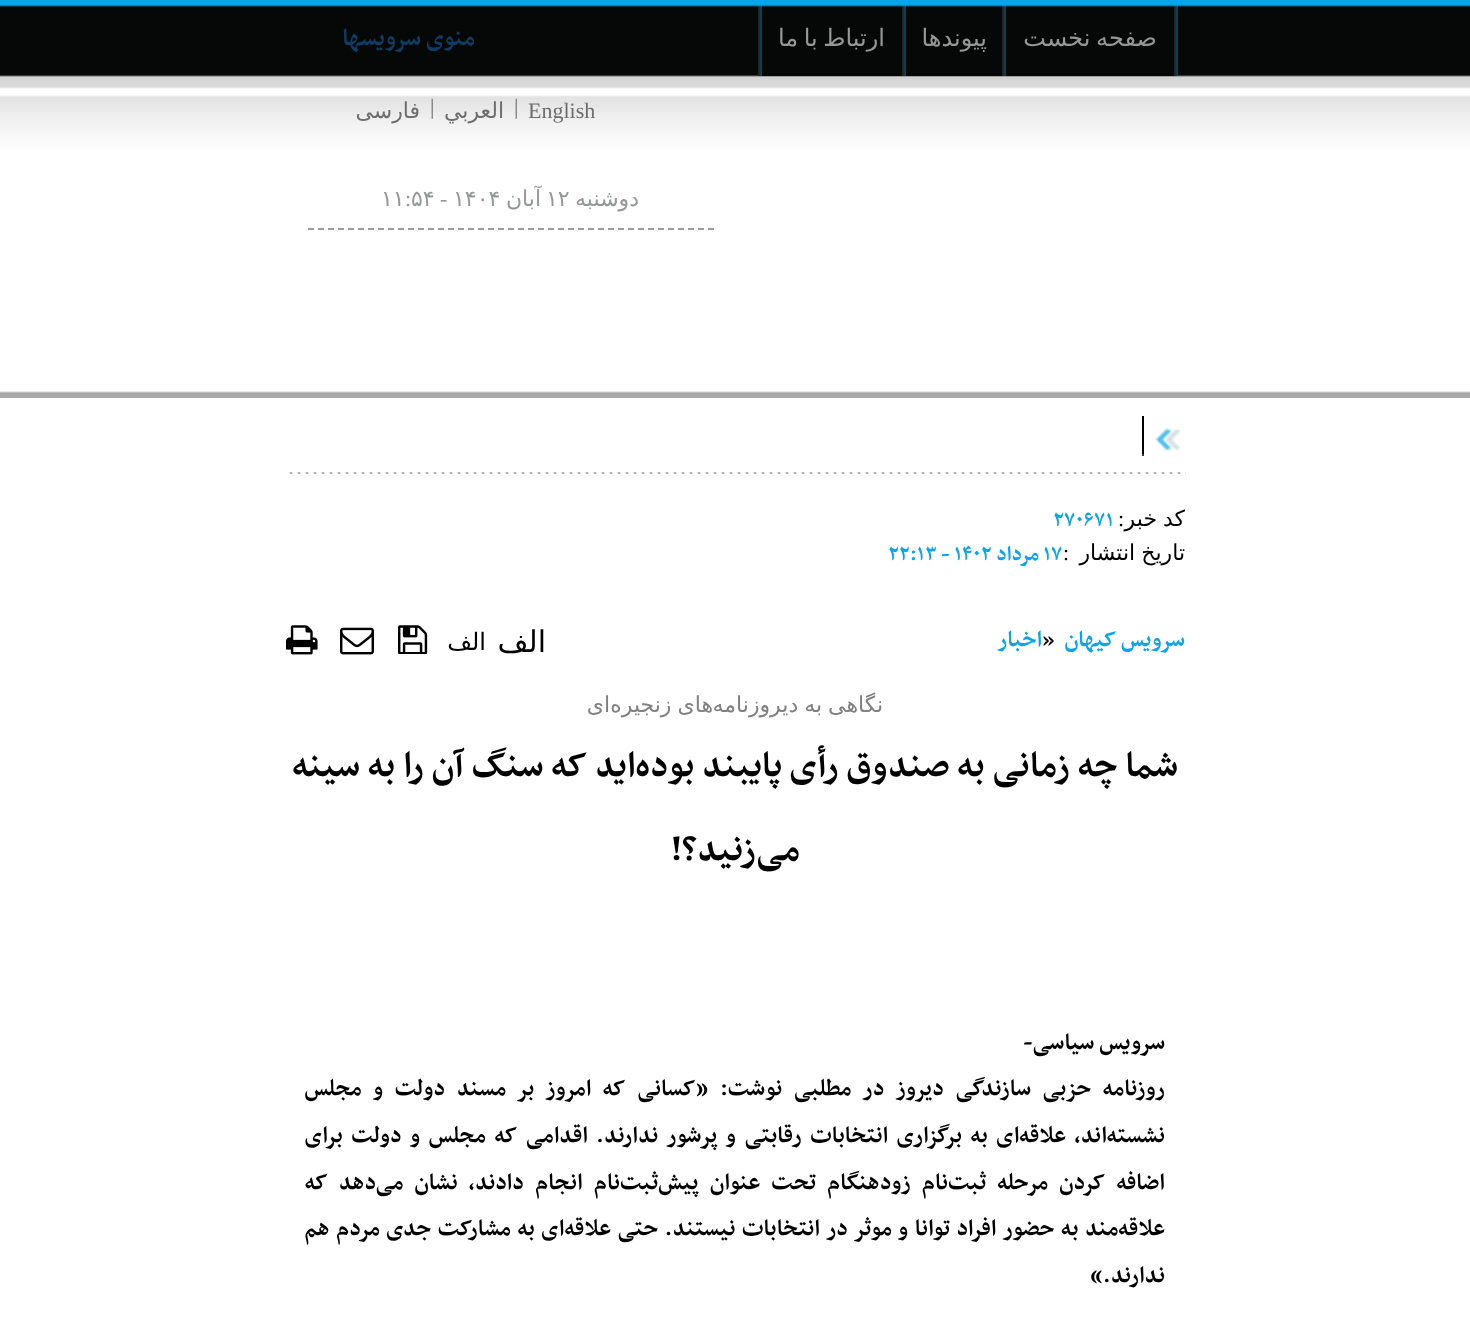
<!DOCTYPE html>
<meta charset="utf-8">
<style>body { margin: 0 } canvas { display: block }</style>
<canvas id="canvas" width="1470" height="1317"></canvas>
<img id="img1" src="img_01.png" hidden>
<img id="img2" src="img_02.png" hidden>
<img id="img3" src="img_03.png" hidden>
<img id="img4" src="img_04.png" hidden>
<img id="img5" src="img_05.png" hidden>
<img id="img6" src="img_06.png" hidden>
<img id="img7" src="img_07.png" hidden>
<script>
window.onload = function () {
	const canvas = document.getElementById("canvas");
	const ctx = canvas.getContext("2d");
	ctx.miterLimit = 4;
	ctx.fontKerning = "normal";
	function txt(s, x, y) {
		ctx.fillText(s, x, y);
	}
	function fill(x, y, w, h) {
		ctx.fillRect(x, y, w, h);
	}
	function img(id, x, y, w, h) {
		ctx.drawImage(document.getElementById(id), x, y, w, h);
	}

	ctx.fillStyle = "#FFFFFF";
	fill(0, 0, 1470, 1317);
	img("img1", 0, 0, 1470, 398);
	img("img2", 1174, 5, 4, 71);
	ctx.fillStyle = "#050807";
	fill(1006, 75, 168, 1);
	img("img2", 1002, 5, 4, 71);
	fill(906, 75, 96, 1);
	img("img2", 902, 5, 4, 71);
	fill(762, 75, 140, 1);
	img("img2", 758, 5, 4, 71);
	ctx.beginPath();
	ctx.moveTo(308, 229);
	ctx.lineTo(714, 229);
	ctx.strokeStyle = "#9C9C9C";
	ctx.lineWidth = 2;
	ctx.setLineDash([6, 4]);
	ctx.stroke();
	img("img3", 1155, 427, 26, 24);
	ctx.fillStyle = "#000000";
	fill(1142, 416, 2, 40);
	ctx.fillStyle = "#383838";
	fill(1142, 454, 2, 2);
	img("img4", 289, 472, 897, 2);
	img("img5", 398, 625, 30, 29);
	img("img6", 340, 627, 34, 28);
	img("img7", 286, 625, 32, 30);
	ctx.wordSpacing = "-2px";
	ctx.direction = "rtl";
	ctx.font = "24px DejaVu Sans";
	ctx.fillStyle = "#969897";
	txt("صفحه نخست", 1157, 46);
	ctx.wordSpacing = "0px";
	txt("پیوندها", 987, 46);
	ctx.wordSpacing = "-2px";
	txt("ارتباط با ما", 885, 46);
	ctx.wordSpacing = "0px";
	ctx.font = "bold 28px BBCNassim";
	ctx.fillStyle = "#103C63";
	txt("منوی سرویسها", 475, 45);
	ctx.direction = "ltr";
	ctx.font = "22px Liberation Serif";
	ctx.fillStyle = "#6E6E6E";
	txt("English", 528, 118);
	txt("|", 514, 114);
	ctx.direction = "rtl";
	ctx.font = "22px DejaVu Sans";
	txt("العربي", 504, 118);
	ctx.direction = "ltr";
	ctx.font = "22px Liberation Serif";
	txt("|", 430, 114);
	ctx.direction = "rtl";
	ctx.font = "22px DejaVu Sans";
	txt("فارسی", 420, 118);
	ctx.fillStyle = "#969897";
	txt("دوشنبه", 639, 206);
	ctx.direction = "ltr";
	txt("۱۲", 546, 206);
	ctx.direction = "rtl";
	txt("آبان", 541, 206);
	ctx.direction = "ltr";
	txt("۱۴۰۴", 453, 206);
	ctx.font = "22px Liberation Serif";
	txt("-", 440, 206);
	ctx.font = "22px DejaVu Sans";
	txt("۵۴", 411, 206);
	ctx.font = "22px Liberation Serif";
	txt(":", 405, 206);
	ctx.font = "22px DejaVu Sans";
	txt("۱۱", 381, 206);
	ctx.wordSpacing = "-1px";
	ctx.direction = "rtl";
	ctx.fillStyle = "#000000";
	txt("کد خبر", 1185, 526);
	ctx.wordSpacing = "0px";
	ctx.font = "22px Liberation Serif";
	txt(":", 1124, 526);
	ctx.direction = "ltr";
	ctx.font = "bold 24px BBCNassim";
	ctx.fillStyle = "#0AA5E8";
	txt("۲۷۰۶۷۱", 1053, 526);
	ctx.wordSpacing = "-1px";
	ctx.direction = "rtl";
	ctx.font = "22px DejaVu Sans";
	ctx.fillStyle = "#000000";
	txt("تاریخ انتشار", 1185, 560);
	ctx.wordSpacing = "0px";
	ctx.direction = "ltr";
	ctx.font = "22px Liberation Serif";
	txt(":", 1063, 560);
	ctx.font = "bold 24px BBCNassim";
	ctx.fillStyle = "#0AA5E8";
	txt("۱۷", 1043, 560);
	ctx.direction = "rtl";
	txt("مرداد", 1039, 560);
	ctx.direction = "ltr";
	txt("۲۲:۱۳ - ۱۴۰۲", 888, 560);
	ctx.direction = "rtl";
	ctx.font = "bold 26px BBCNassim";
	txt("سرویس کیهان", 1185, 646);
	ctx.direction = "ltr";
	ctx.fillStyle = "#000000";
	txt("»", 1042, 646);
	ctx.direction = "rtl";
	ctx.fillStyle = "#0AA5E8";
	txt("اخبار", 1042, 646);
	ctx.font = "30px DejaVu Sans";
	ctx.fillStyle = "#000000";
	txt("الف", 546, 652);
	ctx.font = "24px DejaVu Sans";
	txt("الف", 486, 650);
	ctx.wordSpacing = "-1px";
	ctx.font = "22px DejaVu Sans";
	ctx.fillStyle = "#808080";
	txt("نگاهی به دیروزنامه", 883, 712);
	txt("های زنجیره", 713, 712);
	ctx.wordSpacing = "0px";
	txt("ای", 610, 712);
	ctx.font = "bold 42px BBCNassim";
	ctx.fillStyle = "#000000";
	txt("شما چه زمانی به صندوق رأی پایبند بوده‌اید که سنگ آن را به سینه", 1178, 776);
	txt("می‌زنید؟!", 800, 860);
	ctx.font = "bold 26.7px BBCNassim";
	txt("سرویس سیاسی-", 1165, 1049);
	ctx.wordSpacing = "6.6px";
	txt("روزنامه حزبی سازندگی دیروز در مطلبی نوشت: «کسانی که امروز بر مسند دولت و مجلس", 1165, 1095);
	ctx.wordSpacing = "3.6px";
	txt("نشسته‌اند‌، علاقه‌ای به برگزاری انتخابات رقابتی و پرشور ندارند. اقدامی که مجلس و دولت برای", 1165, 1142);
	ctx.wordSpacing = "6.1px";
	txt("اضافه کردن مرحله ثبت‌نام زودهنگام تحت عنوان پیش‌ثبت‌نام انجام دادند، نشان می‌دهد که", 1165, 1189);
	ctx.wordSpacing = "1.6px";
	txt("علاقه‌مند به حضور افراد توانا و موثر در انتخابات نیستند. حتی علاقه‌ای به مشارکت جدی مردم هم", 1165, 1235);
	ctx.wordSpacing = "0px";
	txt("ندارند.»", 1165, 1282);
};
</script>
